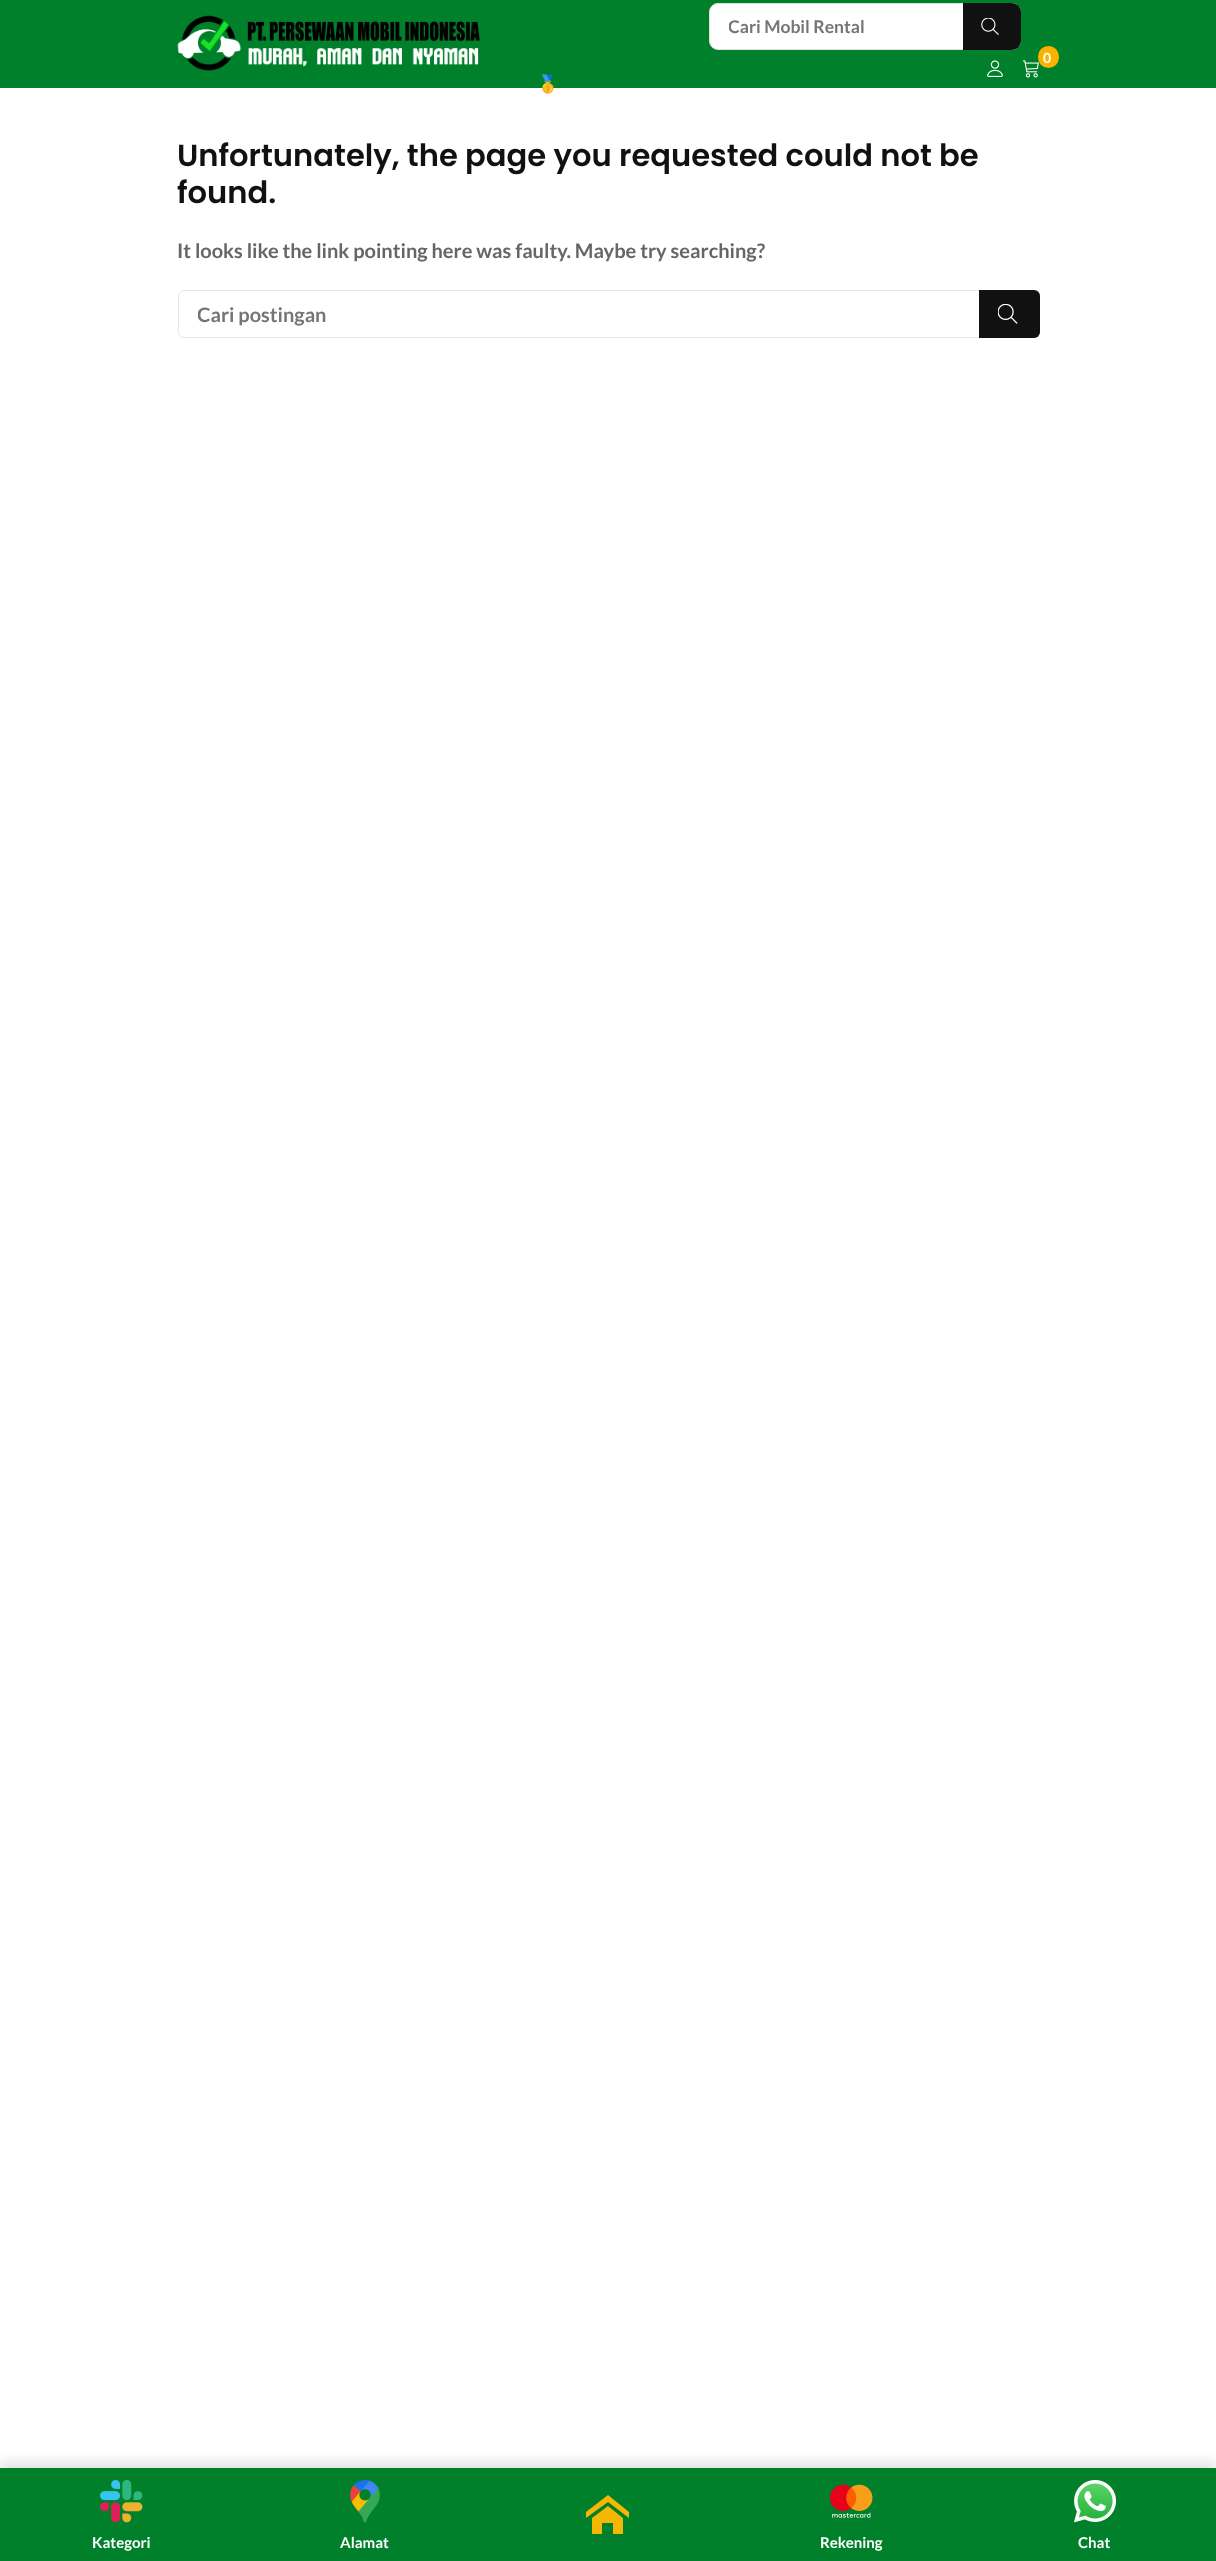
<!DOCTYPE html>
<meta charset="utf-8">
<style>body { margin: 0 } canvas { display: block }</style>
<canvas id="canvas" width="1216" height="2561"></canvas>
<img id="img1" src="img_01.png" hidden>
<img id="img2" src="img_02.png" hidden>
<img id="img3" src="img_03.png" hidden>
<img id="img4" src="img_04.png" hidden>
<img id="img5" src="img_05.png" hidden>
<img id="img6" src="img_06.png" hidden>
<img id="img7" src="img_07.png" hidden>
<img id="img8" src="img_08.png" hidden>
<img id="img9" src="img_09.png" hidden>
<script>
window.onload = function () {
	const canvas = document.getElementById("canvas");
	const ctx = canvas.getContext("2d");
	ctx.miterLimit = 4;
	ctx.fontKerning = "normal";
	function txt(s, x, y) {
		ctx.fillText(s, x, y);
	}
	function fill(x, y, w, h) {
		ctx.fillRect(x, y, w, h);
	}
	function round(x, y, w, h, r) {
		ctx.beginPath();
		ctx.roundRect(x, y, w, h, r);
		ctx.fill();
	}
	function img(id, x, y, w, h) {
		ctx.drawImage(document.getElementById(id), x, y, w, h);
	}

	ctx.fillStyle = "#FFFFFF";
	fill(0, 0, 1216, 2561);
	ctx.fillStyle = "#00802B";
	fill(0, 0, 1216, 88);
	ctx.fillStyle = "#FFFFFF";
	ctx.beginPath();
	ctx.roundRect(709.5, 3.5, 311, 46, 8.5);
	ctx.fill();
	ctx.strokeStyle = "#E3E1DD";
	ctx.stroke();
	ctx.fillStyle = "#111111";
	ctx.beginPath();
	ctx.roundRect(963, 3, 58, 47, [0, 9, 9, 0]);
	ctx.fill();
	img("img1", 981, 18, 18, 17);
	img("img2", 1023, 60, 16, 18);
	ctx.fillStyle = "#FAB200";
	round(1038, 46, 21, 22, 10.5);
	img("img3", 987, 60, 16, 17);
	img("img4", 177, 15, 303, 56);
	ctx.beginPath();
	ctx.roundRect(178.5, 290.5, 861, 47, 5.5);
	ctx.strokeStyle = "#E8E7E7";
	ctx.stroke();
	ctx.fillStyle = "#111111";
	ctx.beginPath();
	ctx.roundRect(979, 290, 61, 48, [0, 6, 6, 0]);
	ctx.fill();
	img("img5", 998, 304, 20, 20);
	ctx.fillStyle = "rgba(0, 0, 0, 0.1)";
	ctx.filter = "blur(6px)";
	ctx.beginPath();
	ctx.rect(0, 2461, 1216, 100);
	ctx.fill();
	ctx.filter = "none";
	ctx.fillStyle = "#00802B";
	fill(0, 2468, 1216, 93);
	ctx.fillStyle = "#F6B604";
	ctx.beginPath();
	ctx.moveTo(629, 2518);
	ctx.lineTo(608, 2502);
	ctx.lineTo(586, 2518);
	ctx.lineTo(586, 2512);
	ctx.lineTo(608, 2495);
	ctx.lineTo(629, 2512);
	ctx.closePath();
	ctx.moveTo(623, 2518);
	ctx.lineTo(623, 2534);
	ctx.lineTo(613, 2534);
	ctx.lineTo(613, 2523);
	ctx.lineTo(602, 2523);
	ctx.lineTo(602, 2534);
	ctx.lineTo(592, 2534);
	ctx.lineTo(592, 2518);
	ctx.lineTo(608, 2506);
	ctx.closePath();
	ctx.fill();
	img("img6", 100, 2480, 43, 43);
	img("img7", 350, 2480, 30, 43);
	img("img8", 830, 2484, 43, 34);
	img("img9", 1074, 2480, 42, 43);
	ctx.save();
	ctx.beginPath();
	ctx.rect(729, 16, 230, 22);
	ctx.clip();
	ctx.font = "bold 17.5px Lato";
	ctx.fillStyle = "#757575";
	txt("Cari Mobil Rental", 728, 33);
	ctx.restore();
	ctx.font = "bold 14px Lato";
	ctx.fillStyle = "#FFFFFF";
	txt("0", 1043, 63);
	ctx.font = "bold 17.5px Noto Color Emoji";
	ctx.fillStyle = "#EDF6F0";
	txt("🥇", 537, 90);
	ctx.font = "600 30.6px Poppins";
	ctx.fillStyle = "#111111";
	txt("Unfortunately, the page you requested could not be", 177, 166);
	txt("found.", 177, 203);
	ctx.font = "bold 20px Lato";
	ctx.fillStyle = "#666666";
	txt("It looks like the link pointing here was faulty. Maybe try searching?", 177, 258);
	ctx.save();
	ctx.beginPath();
	ctx.rect(198, 303, 778, 23);
	ctx.clip();
	ctx.fillStyle = "#757575";
	txt("Cari postingan", 197, 322);
	ctx.restore();
	ctx.font = "bold 15px Lato";
	ctx.fillStyle = "#FFFFFF";
	txt("Kategori", 92, 2548);
	txt("Alamat", 340, 2548);
	txt("Rekening", 820, 2548);
	txt("Chat", 1078, 2548);
};
</script>
